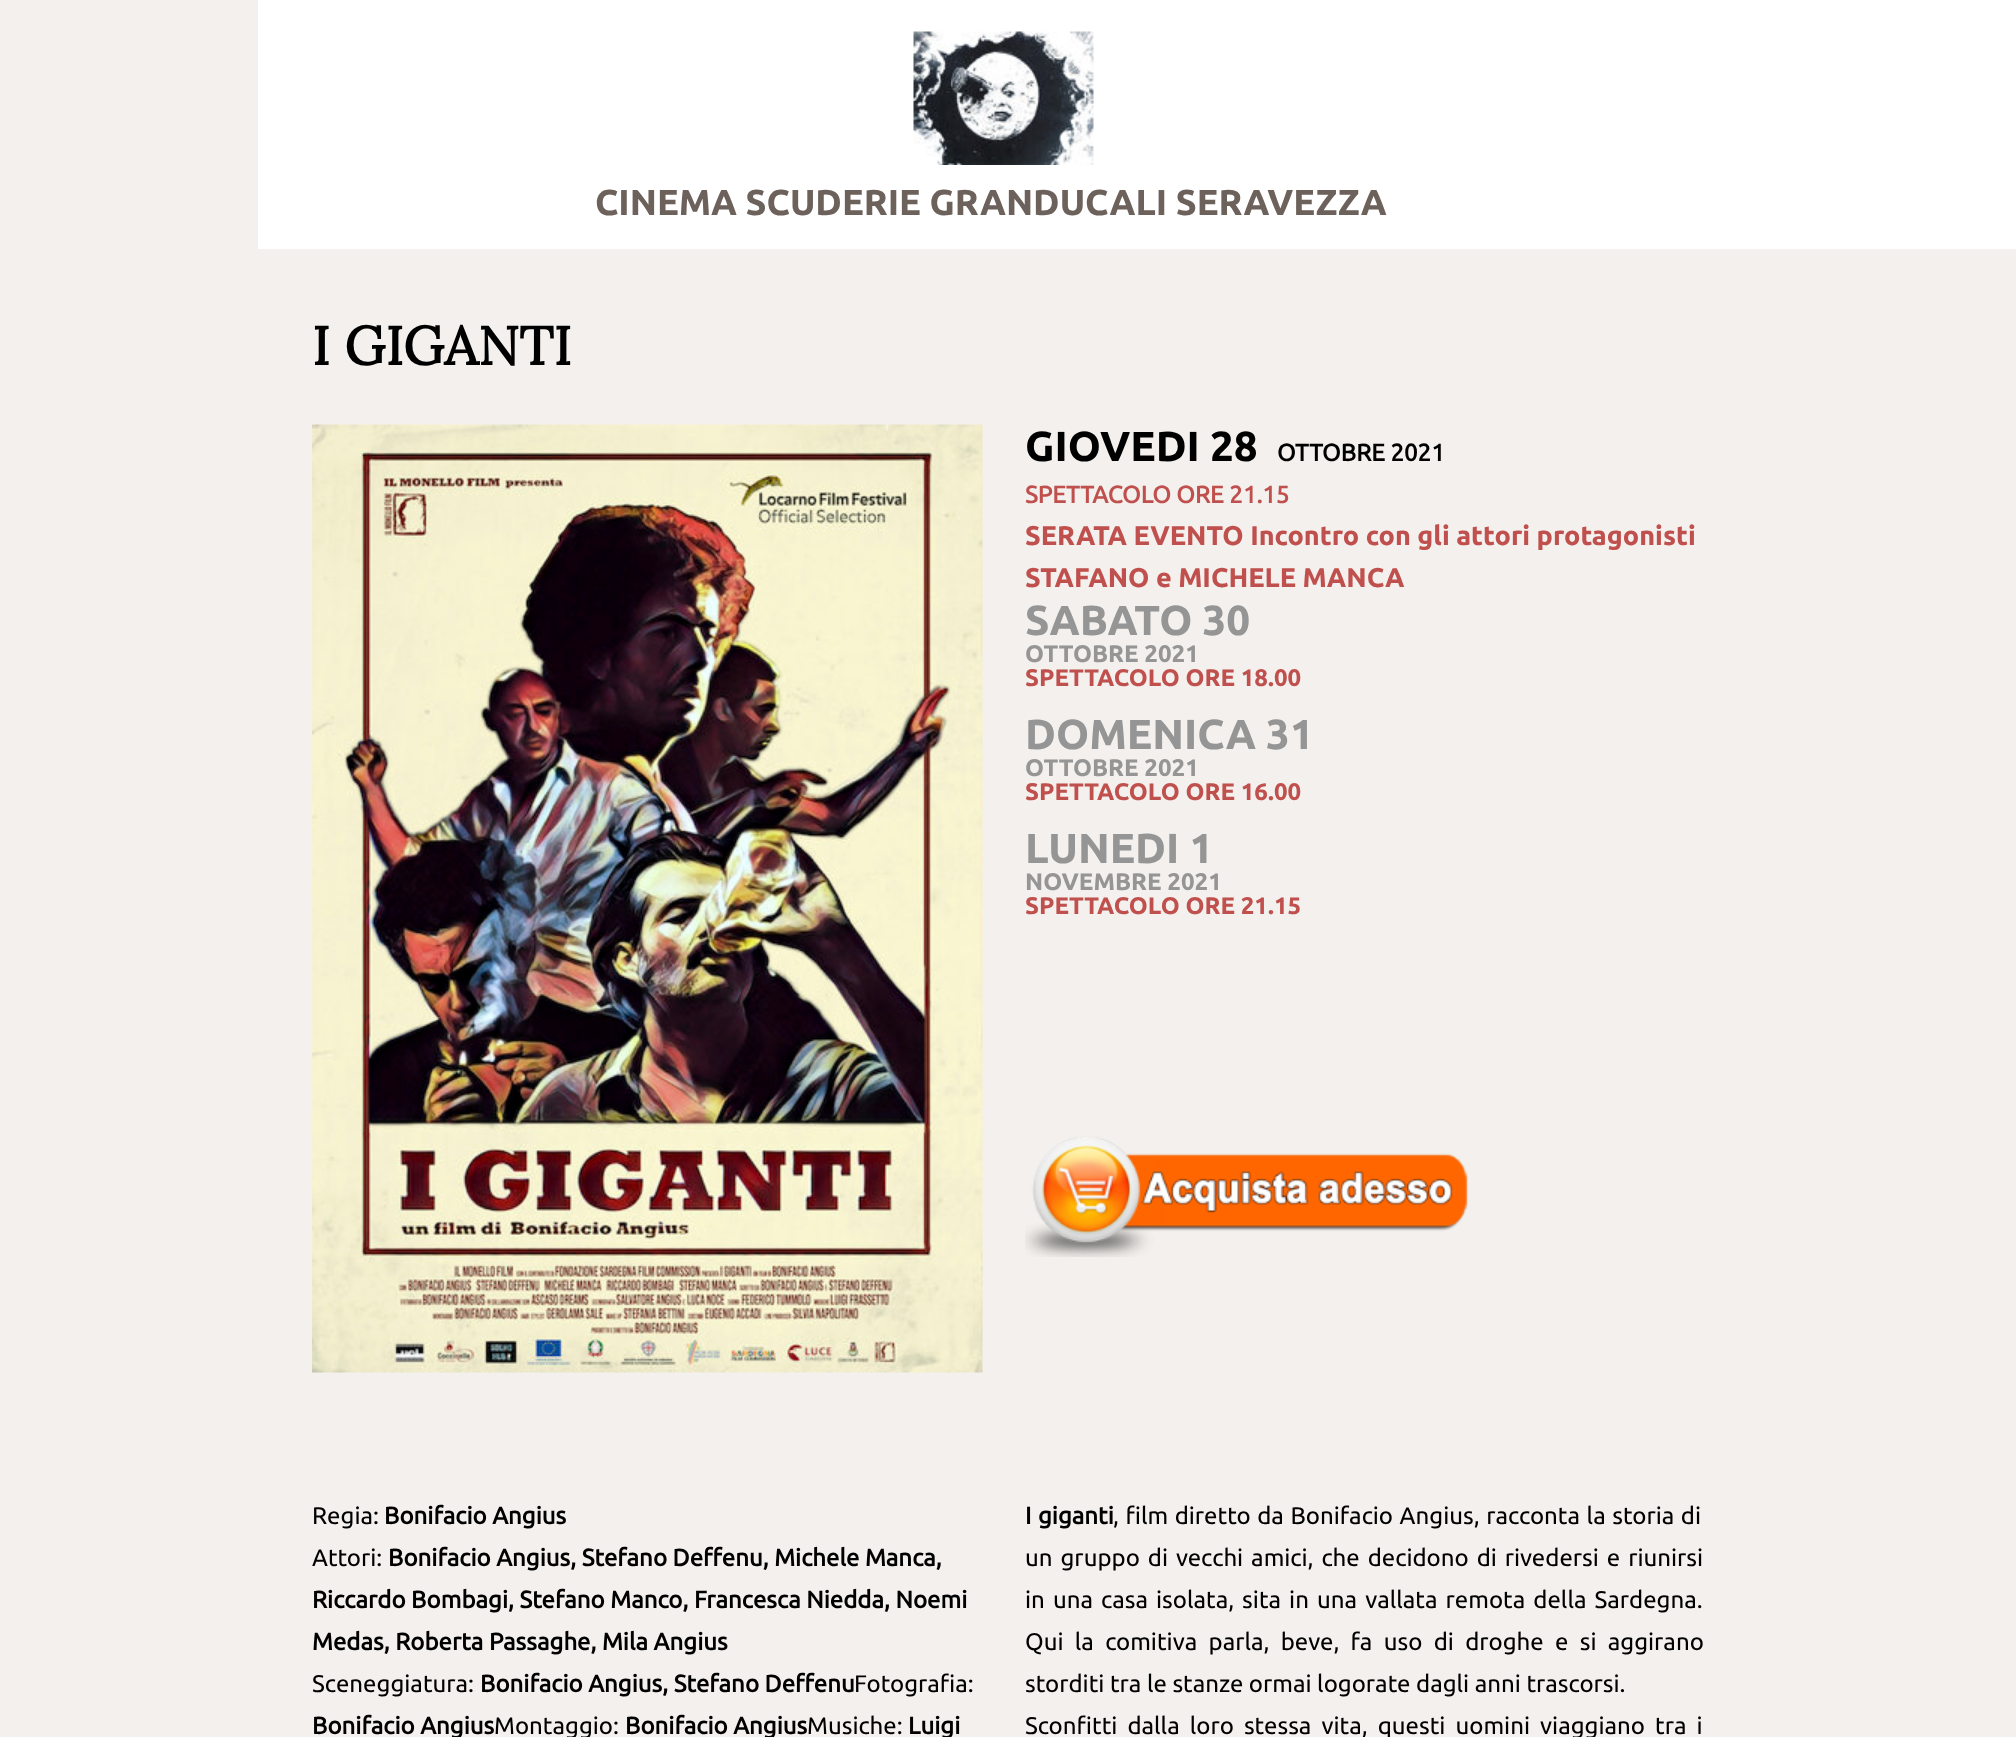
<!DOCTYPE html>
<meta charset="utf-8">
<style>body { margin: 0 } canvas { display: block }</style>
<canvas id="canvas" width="2016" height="1737"></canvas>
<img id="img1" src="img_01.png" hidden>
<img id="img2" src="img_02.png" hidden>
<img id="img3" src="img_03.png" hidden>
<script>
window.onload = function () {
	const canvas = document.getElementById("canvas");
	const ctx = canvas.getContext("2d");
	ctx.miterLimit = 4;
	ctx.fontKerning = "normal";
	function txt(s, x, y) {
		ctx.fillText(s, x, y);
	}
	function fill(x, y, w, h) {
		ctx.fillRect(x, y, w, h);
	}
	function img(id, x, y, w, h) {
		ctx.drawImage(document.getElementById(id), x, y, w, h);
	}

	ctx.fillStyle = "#F3F0ED";
	fill(0, 0, 2016, 1737);
	ctx.fillStyle = "#FFFFFF";
	fill(258, 0, 1758, 249);
	img("img1", 913, 31, 181, 134);
	img("img2", 312, 424, 671, 949);
	img("img3", 1025, 1136, 443, 121);
	ctx.font = "bold 36px 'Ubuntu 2'";
	ctx.fillStyle = "#6D615B";
	txt("CINEMA SCUDERIE GRANDUCALI SERAVEZZA", 595, 215);
	ctx.font = "bold 54px Lora";
	ctx.fillStyle = "#000000";
	txt("I GIGANTI", 312, 365);
	ctx.font = "bold 42px 'Ubuntu 2'";
	txt("GIOVEDI 28", 1025, 461);
	ctx.font = "bold 24px Ubuntu";
	txt("OTTOBRE 2021", 1277, 461);
	ctx.fillStyle = "#C0504D";
	txt("SPETTACOLO ORE 21.15", 1025, 503);
	ctx.font = "bold 27px 'Ubuntu 2'";
	txt("SERATA EVENTO Incontro con gli attori protagonisti", 1025, 545);
	txt("STAFANO e MICHELE MANCA", 1025, 587);
	ctx.font = "bold 42px 'Ubuntu 2'";
	ctx.fillStyle = "#959595";
	txt("SABATO 30", 1025, 635);
	ctx.font = "bold 24px 'Ubuntu 2'";
	txt("OTTOBRE 2021", 1025, 662);
	ctx.fillStyle = "#C0504D";
	txt("SPETTACOLO ORE 18.00", 1025, 686);
	ctx.font = "bold 42px 'Ubuntu 2'";
	ctx.fillStyle = "#959595";
	txt("DOMENICA 31", 1025, 749);
	ctx.font = "bold 24px 'Ubuntu 2'";
	txt("OTTOBRE 2021", 1025, 776);
	ctx.fillStyle = "#C0504D";
	txt("SPETTACOLO ORE 16.00", 1025, 800);
	ctx.font = "bold 42px 'Ubuntu 2'";
	ctx.fillStyle = "#959595";
	txt("LUNEDI 1", 1025, 863);
	ctx.font = "bold 24px 'Ubuntu 2'";
	txt("NOVEMBRE 2021", 1025, 890);
	ctx.fillStyle = "#C0504D";
	txt("SPETTACOLO ORE 21.15", 1025, 914);
	ctx.font = "24px Ubuntu";
	ctx.fillStyle = "#000000";
	txt("Regia:", 312, 1524);
	ctx.font = "bold 24px Ubuntu";
	txt("Bonifacio Angius", 384, 1524);
	ctx.font = "24px Ubuntu";
	txt("Attori:", 312, 1566);
	ctx.font = "bold 24px Ubuntu";
	txt("Bonifacio Angius, Stefano Deffenu, Michele Manca,", 388, 1566);
	txt("Riccardo Bombagi, Stefano Manco, Francesca Niedda, Noemi", 312, 1608);
	txt("Medas, Roberta Passaghe, Mila Angius", 312, 1650);
	ctx.font = "24px Ubuntu";
	txt("Sceneggiatura:", 312, 1692);
	ctx.font = "bold 24px Ubuntu";
	txt("Bonifacio Angius, Stefano Deffenu", 480, 1692);
	ctx.font = "24px Ubuntu";
	txt("Fotografia:", 854, 1692);
	ctx.font = "bold 24px Ubuntu";
	txt("Bonifacio Angius", 312, 1734);
	ctx.font = "24px Ubuntu";
	txt("Montaggio:", 494, 1734);
	ctx.font = "bold 24px Ubuntu";
	txt("Bonifacio Angius", 625, 1734);
	ctx.font = "24px Ubuntu";
	txt("Musiche:", 807, 1734);
	ctx.font = "bold 24px Ubuntu";
	txt("Luigi", 908, 1734);
	ctx.wordSpacing = "1px";
	txt("I giganti", 1025, 1524);
	ctx.font = "24px Ubuntu";
	txt(", film diretto da Bonifacio Angius, racconta la storia di", 1113, 1524);
	ctx.wordSpacing = "2.4px";
	txt("un gruppo di vecchi amici, che decidono di rivedersi e riunirsi", 1025, 1566);
	ctx.wordSpacing = "2.5px";
	txt("in una casa isolata, sita in una vallata remota della Sardegna.", 1025, 1608);
	ctx.wordSpacing = "5.75px";
	txt("Qui la comitiva parla, beve, fa uso di droghe e si aggirano", 1025, 1650);
	ctx.wordSpacing = "0px";
	txt("storditi tra le stanze ormai logorate dagli anni trascorsi.", 1025, 1692);
	ctx.wordSpacing = "4.5px";
	txt("Sconfitti dalla loro stessa vita, questi uomini viaggiano tra i", 1025, 1734);
};
</script>
